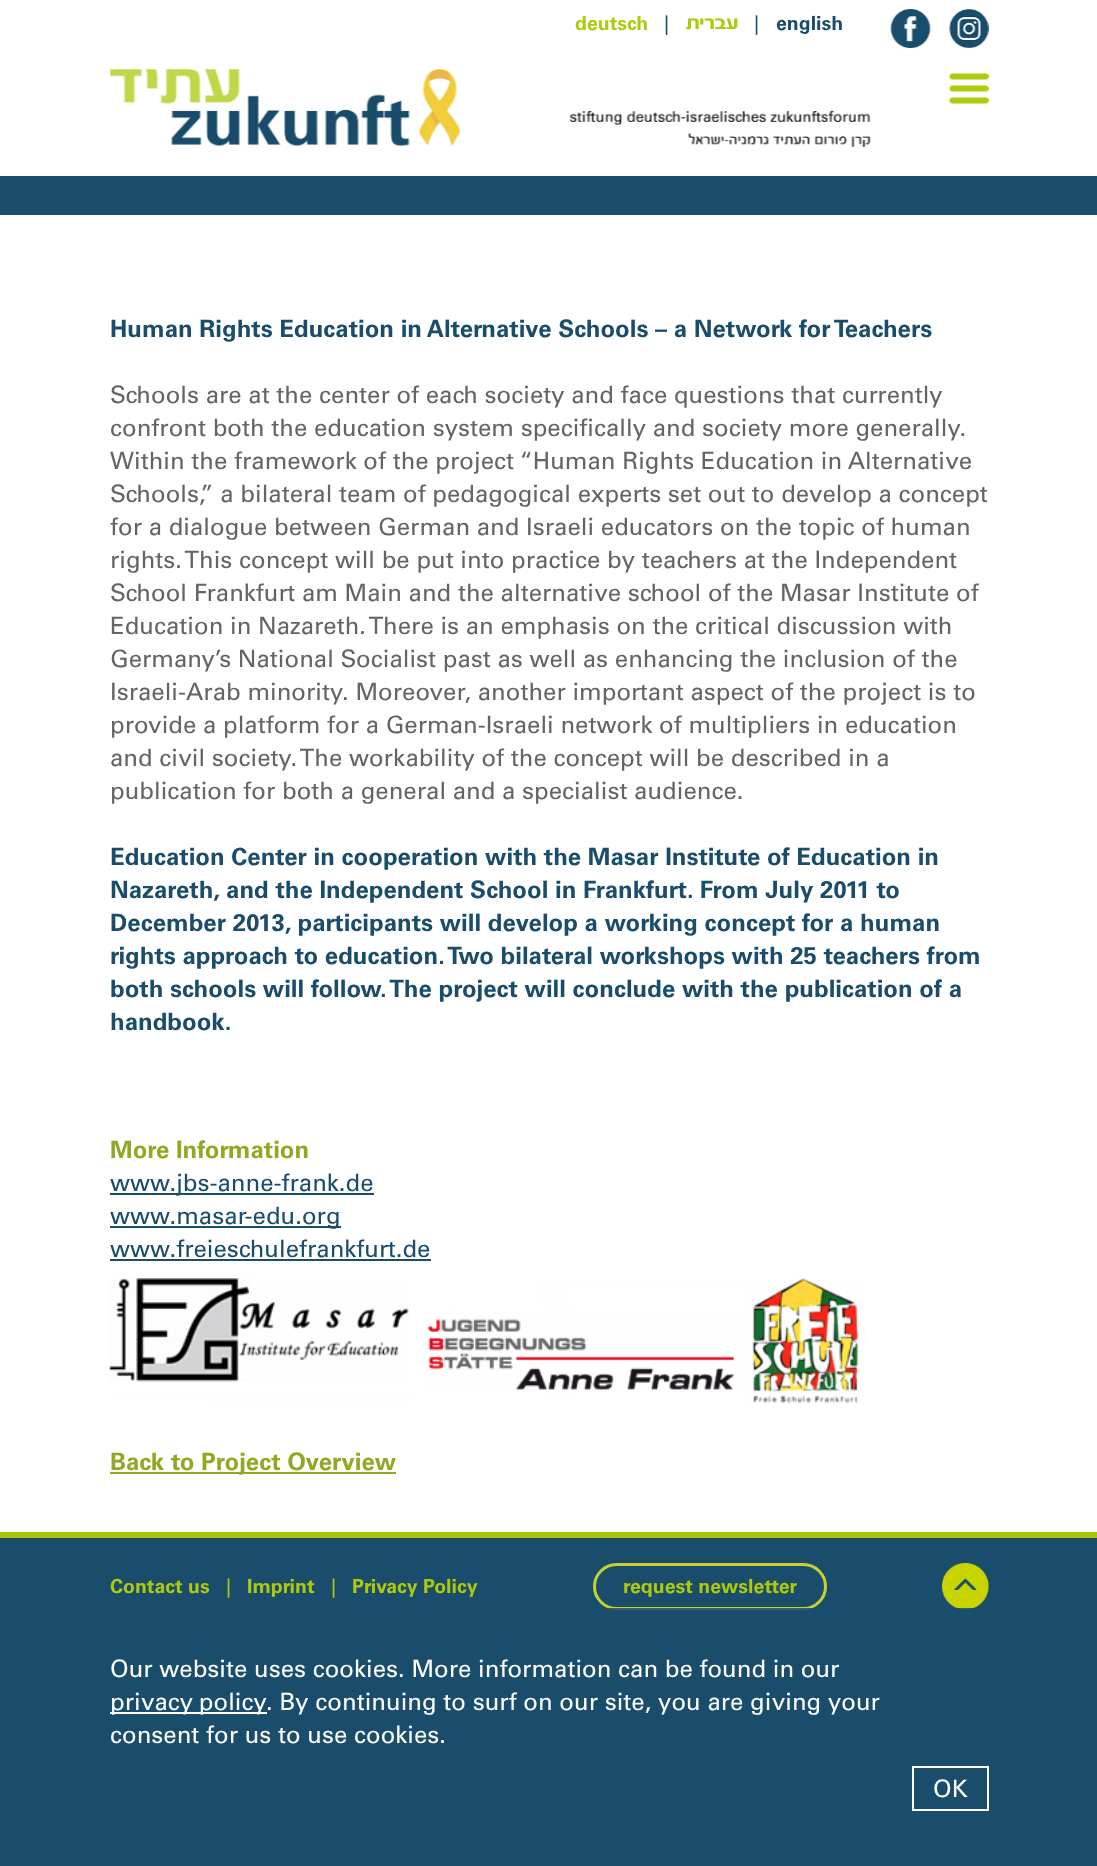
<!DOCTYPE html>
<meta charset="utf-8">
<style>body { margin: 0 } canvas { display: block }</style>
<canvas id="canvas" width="1097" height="1866"></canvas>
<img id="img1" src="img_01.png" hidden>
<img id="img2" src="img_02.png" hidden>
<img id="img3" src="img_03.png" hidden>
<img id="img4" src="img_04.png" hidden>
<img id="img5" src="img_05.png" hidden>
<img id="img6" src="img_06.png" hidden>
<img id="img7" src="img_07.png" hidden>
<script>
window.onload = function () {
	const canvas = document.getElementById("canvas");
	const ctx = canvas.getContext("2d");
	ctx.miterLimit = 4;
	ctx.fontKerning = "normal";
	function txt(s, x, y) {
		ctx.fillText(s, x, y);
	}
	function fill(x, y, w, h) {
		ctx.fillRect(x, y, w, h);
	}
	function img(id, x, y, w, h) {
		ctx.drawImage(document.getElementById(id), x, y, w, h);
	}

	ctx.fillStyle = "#194D6B";
	fill(0, 0, 1097, 1866);
	ctx.fillStyle = "#FFFFFF";
	fill(0, 0, 1097, 1532);
	img("img1", 890, 9, 41, 39);
	img("img2", 949, 9, 40, 39);
	img("img3", 110, 69, 351, 77);
	img("img4", 949, 73, 40, 31);
	img("img5", 569, 111, 302, 36);
	ctx.fillStyle = "#194D6B";
	fill(0, 176, 1097, 39);
	fill(110, 1193, 264, 2);
	fill(110, 1226, 231, 2);
	fill(110, 1259, 321, 2);
	img("img6", 109, 1278, 750, 125);
	ctx.fillStyle = "#91A822";
	fill(110, 1472, 286, 2);
	ctx.fillStyle = "#ABC20B";
	fill(0, 1532, 1097, 6);
	ctx.beginPath();
	ctx.roundRect(594.5, 1564.5, 231, 44, 22);
	ctx.strokeStyle = "#C8D22C";
	ctx.lineWidth = 3;
	ctx.stroke();
	img("img7", 942, 1563, 47, 47);
	ctx.fillStyle = "rgba(25, 77, 107, 0.85)";
	fill(607, 1608, 367, 2);
	ctx.fillStyle = "#FFFFFF";
	fill(110, 1712, 157, 2);
	ctx.strokeStyle = "#FFFFFF";
	ctx.lineWidth = 2;
	ctx.strokeRect(913, 1767, 75, 43);
	ctx.font = "bold 19.5px Univers";
	ctx.fillStyle = "#AFCA0B";
	txt("deutsch", 575, 30);
	ctx.font = "19.5px Univers";
	ctx.fillStyle = "#194D6B";
	txt("|", 664, 30);
	ctx.direction = "rtl";
	ctx.font = "bold 21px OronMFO";
	ctx.fillStyle = "#AFCA0B";
	txt("עברית", 738, 29);
	ctx.direction = "ltr";
	ctx.font = "19.5px Univers";
	ctx.fillStyle = "#194D6B";
	txt("|", 754, 30);
	ctx.font = "bold 19.5px Univers";
	txt("english", 776, 30);
	ctx.font = "bold 24px Univers";
	txt("Human Rights Education in Alternative Schools – a Network for Teachers", 110, 337);
	ctx.font = "24px Univers";
	ctx.fillStyle = "#636466";
	txt("Schools are at the center of each society and face questions that currently", 110, 403);
	txt("confront both the education system specifically and society more generally.", 110, 436);
	txt("Within the framework of the project “Human Rights Education in Alternative", 110, 469);
	txt("Schools,” a bilateral team of pedagogical experts set out to develop a concept", 110, 502);
	txt("for a dialogue between German and Israeli educators on the topic of human", 110, 535);
	txt("rights. This concept will be put into practice by teachers at the Independent", 110, 568);
	txt("School Frankfurt am Main and the alternative school of the Masar Institute of", 110, 601);
	txt("Education in Nazareth. There is an emphasis on the critical discussion with", 110, 634);
	txt("Germany’s National Socialist past as well as enhancing the inclusion of the", 110, 667);
	txt("Israeli-Arab minority. Moreover, another important aspect of the project is to", 110, 700);
	txt("provide a platform for a German-Israeli network of multipliers in education", 110, 733);
	txt("and civil society. The workability of the concept will be described in a", 110, 766);
	txt("publication for both a general and a specialist audience.", 110, 799);
	ctx.font = "bold 24px Univers";
	ctx.fillStyle = "#194D6B";
	txt("Education Center in cooperation with the Masar Institute of Education in", 110, 865);
	txt("Nazareth, and the Independent School in Frankfurt. From July 2011 to", 110, 898);
	txt("December 2013, participants will develop a working concept for a human", 110, 931);
	txt("rights approach to education. Two bilateral workshops with 25 teachers from", 110, 964);
	txt("both schools will follow. The project will conclude with the publication of a", 110, 997);
	txt("handbook.", 110, 1030);
	ctx.fillStyle = "#91A822";
	txt("More Information", 110, 1158);
	ctx.font = "24px Univers";
	ctx.fillStyle = "#194D6B";
	txt("www.jbs-anne-frank.de", 110, 1191);
	txt("www.masar-edu.org", 110, 1224);
	txt("www.freieschulefrankfurt.de", 110, 1257);
	ctx.font = "bold 24px Univers";
	ctx.fillStyle = "#91A822";
	txt("Back to Project Overview", 110, 1470);
	ctx.font = "bold 19.5px Univers";
	ctx.fillStyle = "#AFCA0B";
	txt("Contact us", 110, 1593);
	ctx.font = "19.5px Univers";
	txt("|", 226, 1593);
	ctx.font = "bold 19.5px Univers";
	txt("Imprint", 247, 1593);
	ctx.font = "19.5px Univers";
	txt("|", 331, 1593);
	ctx.font = "bold 19.5px Univers";
	txt("Privacy Policy", 352, 1593);
	txt("request newsletter", 623, 1593);
	ctx.font = "24px Univers";
	ctx.fillStyle = "#FFFFFF";
	txt("Our website uses cookies. More information can be found in our", 110, 1677);
	ctx.wordSpacing = "-1px";
	txt("privacy policy", 110, 1710);
	ctx.wordSpacing = "0px";
	txt(". By continuing to surf on our site, you are giving your", 266, 1710);
	txt("consent for us to use cookies.", 110, 1743);
	txt("OK", 933, 1797);
};
</script>
